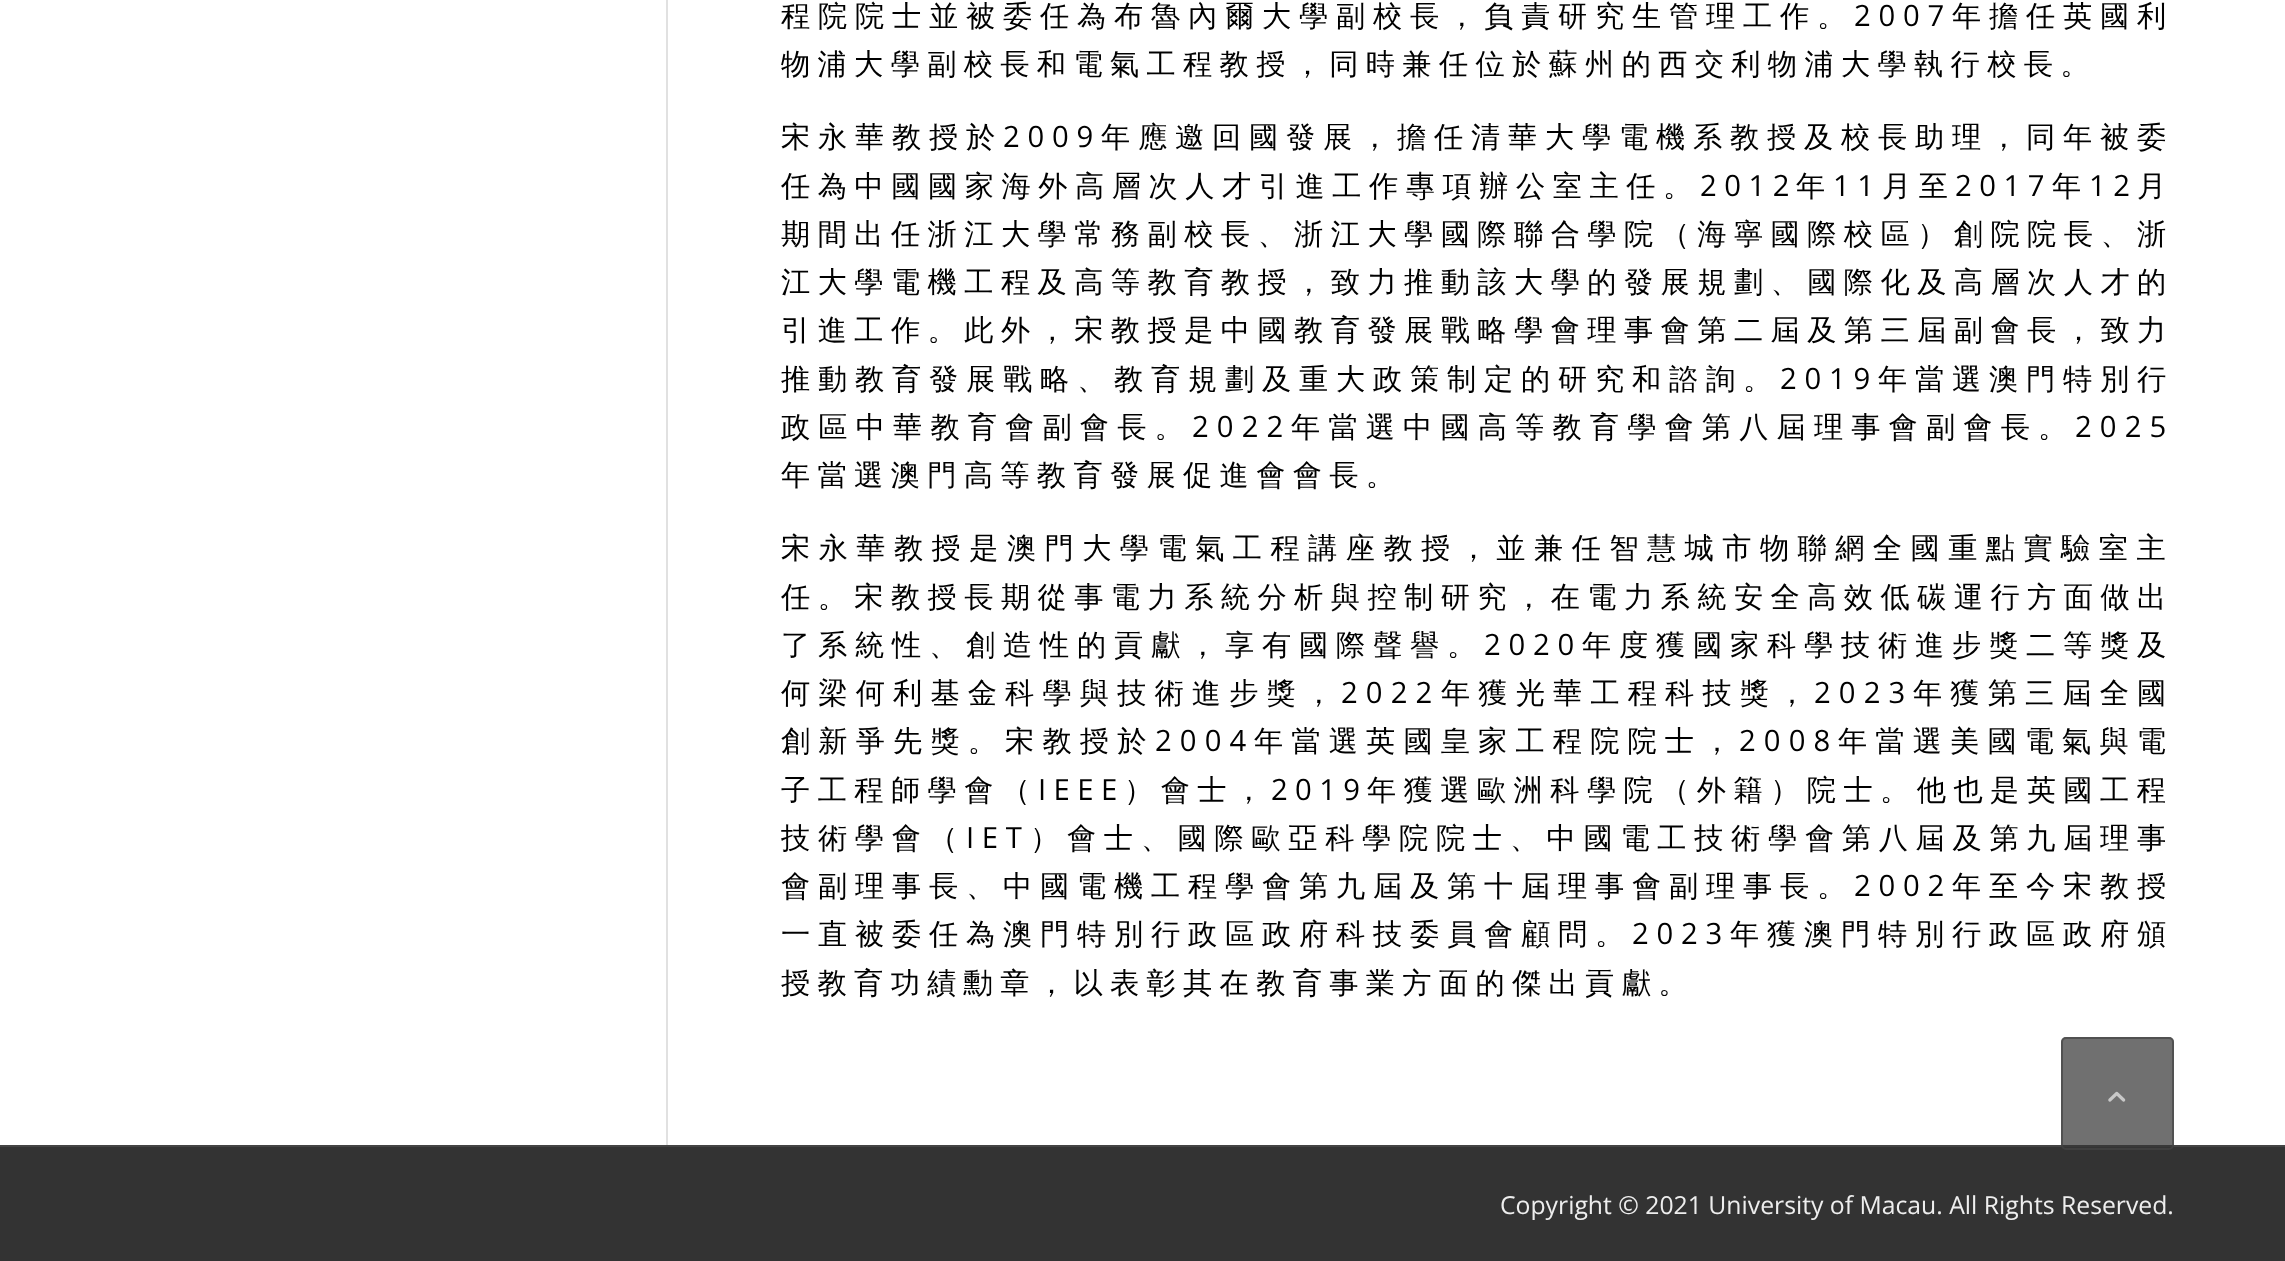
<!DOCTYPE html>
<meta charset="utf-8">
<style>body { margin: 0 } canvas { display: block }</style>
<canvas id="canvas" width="2285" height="1261"></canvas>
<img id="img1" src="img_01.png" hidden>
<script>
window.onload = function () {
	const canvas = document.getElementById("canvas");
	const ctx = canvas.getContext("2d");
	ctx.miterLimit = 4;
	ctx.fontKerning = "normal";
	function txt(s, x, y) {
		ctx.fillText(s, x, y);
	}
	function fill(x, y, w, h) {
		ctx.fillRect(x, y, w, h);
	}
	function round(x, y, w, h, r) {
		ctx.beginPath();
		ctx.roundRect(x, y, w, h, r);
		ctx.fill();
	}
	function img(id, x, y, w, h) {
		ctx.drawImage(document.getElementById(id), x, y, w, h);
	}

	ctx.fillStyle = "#FFFFFF";
	fill(0, 0, 2285, 1261);
	ctx.fillStyle = "#E1E1E1";
	fill(666, 0, 2, 1145);
	ctx.fillStyle = "#333333";
	fill(0, 1147, 2285, 114);
	ctx.fillStyle = "#444444";
	fill(0, 1145, 2285, 2);
	ctx.fillStyle = "rgba(51, 51, 51, 0.7)";
	round(2061, 1037, 113, 113, 5);
	ctx.beginPath();
	ctx.roundRect(2062, 1038, 111, 111, 4);
	ctx.strokeStyle = "rgba(68, 68, 68, 0.7)";
	ctx.lineWidth = 2;
	ctx.stroke();
	img("img1", 2108, 1091, 18, 11);
	ctx.letterSpacing = "7.75px";
	ctx.font = "500 29.25px WenQuanYi Zen Hei";
	ctx.fillStyle = "#000000";
	txt("程院院士並被委任為布魯內爾大學副校長，負責研究生管理工作。", 781, 26);
	ctx.font = "29.25px Open Sans";
	txt("2007", 1854, 26);
	ctx.font = "500 29.25px WenQuanYi Zen Hei";
	txt("年擔任英國利", 1952, 26);
	ctx.letterSpacing = "7.3px";
	txt("物浦大學副校長和電氣工程教授，同時兼任位於蘇州的西交利物浦大學執行校長。", 781, 74);
	ctx.letterSpacing = "7.75px";
	txt("宋永華教授於", 781, 147);
	ctx.font = "29.25px Open Sans";
	txt("2009", 1003, 147);
	ctx.font = "500 29.25px WenQuanYi Zen Hei";
	txt("年應邀回國發展，擔任清華大學電機系教授及校長助理，同年被委", 1101, 147);
	ctx.letterSpacing = "7.5px";
	txt("任為中國國家海外高層次人才引進工作專項辦公室主任。", 781, 196);
	ctx.font = "29.25px Open Sans";
	txt("2012", 1700, 196);
	ctx.font = "500 29.25px WenQuanYi Zen Hei";
	txt("年", 1796, 196);
	ctx.font = "29.25px Open Sans";
	txt("11", 1833, 196);
	ctx.font = "500 29.25px WenQuanYi Zen Hei";
	txt("月至", 1882, 196);
	ctx.font = "29.25px Open Sans";
	txt("2017", 1955, 196);
	ctx.font = "500 29.25px WenQuanYi Zen Hei";
	txt("年", 2052, 196);
	ctx.font = "29.25px Open Sans";
	txt("12", 2089, 196);
	ctx.font = "500 29.25px WenQuanYi Zen Hei";
	txt("月", 2137, 196);
	ctx.letterSpacing = "7.4px";
	txt("期間出任浙江大學常務副校長、浙江大學國際聯合學院（海寧國際校區）創院院長、浙", 781, 244);
	txt("江大學電機工程及高等教育教授，致力推動該大學的發展規劃、國際化及高層次人才的", 781, 292);
	txt("引進工作。此外，宋教授是中國教育發展戰略學會理事會第二屆及第三屆副會長，致力", 781, 340);
	ctx.letterSpacing = "7.75px";
	txt("推動教育發展戰略、教育規劃及重大政策制定的研究和諮詢。", 781, 389);
	ctx.font = "29.25px Open Sans";
	txt("2019", 1780, 389);
	ctx.font = "500 29.25px WenQuanYi Zen Hei";
	txt("年當選澳門特別行", 1878, 389);
	ctx.letterSpacing = "8.1px";
	txt("政區中華教育會副會長。", 781, 437);
	ctx.font = "29.25px Open Sans";
	txt("2022", 1192, 437);
	ctx.font = "500 29.25px WenQuanYi Zen Hei";
	txt("年當選中國高等教育學會第八屆理事會副會長。", 1291, 437);
	ctx.font = "29.25px Open Sans";
	txt("2025", 2075, 437);
	ctx.letterSpacing = "7.3px";
	ctx.font = "500 29.25px WenQuanYi Zen Hei";
	txt("年當選澳門高等教育發展促進會會長。", 781, 485);
	ctx.letterSpacing = "8.4px";
	txt("宋永華教授是澳門大學電氣工程講座教授，並兼任智慧城市物聯網全國重點實驗室主", 781, 558);
	ctx.letterSpacing = "7.4px";
	txt("任。宋教授長期從事電力系統分析與控制研究，在電力系統安全高效低碳運行方面做出", 781, 607);
	ctx.letterSpacing = "7.75px";
	txt("了系統性、創造性的貢獻，享有國際聲譽。", 781, 655);
	ctx.font = "29.25px Open Sans";
	txt("2020", 1484, 655);
	ctx.font = "500 29.25px WenQuanYi Zen Hei";
	txt("年度獲國家科學技術進步獎二等獎及", 1582, 655);
	ctx.letterSpacing = "8.1px";
	txt("何梁何利基金科學與技術進步獎，", 781, 703);
	ctx.font = "29.25px Open Sans";
	txt("2022", 1341, 703);
	ctx.font = "500 29.25px WenQuanYi Zen Hei";
	txt("年獲光華工程科技獎，", 1441, 703);
	ctx.font = "29.25px Open Sans";
	txt("2023", 1814, 703);
	ctx.font = "500 29.25px WenQuanYi Zen Hei";
	txt("年獲第三屆全國", 1913, 703);
	txt("創新爭先獎。宋教授於", 781, 751);
	ctx.font = "29.25px Open Sans";
	txt("2004", 1155, 751);
	ctx.font = "500 29.25px WenQuanYi Zen Hei";
	txt("年當選英國皇家工程院院士，", 1254, 751);
	ctx.font = "29.25px Open Sans";
	txt("2008", 1739, 751);
	ctx.font = "500 29.25px WenQuanYi Zen Hei";
	txt("年當選美國電氣與電", 1838, 751);
	ctx.letterSpacing = "7.4px";
	txt("子工程師學會（", 781, 800);
	ctx.font = "29.25px Open Sans";
	txt("IEEE", 1038, 800);
	ctx.font = "500 29.25px WenQuanYi Zen Hei";
	txt("）會士，", 1124, 800);
	ctx.font = "29.25px Open Sans";
	txt("2019", 1271, 800);
	ctx.font = "500 29.25px WenQuanYi Zen Hei";
	txt("年獲選歐洲科學院（外籍）院士。他也是英國工程", 1367, 800);
	ctx.letterSpacing = "7.65px";
	txt("技術學會（", 781, 848);
	ctx.font = "29.25px Open Sans";
	txt("IET", 966, 848);
	ctx.font = "500 29.25px WenQuanYi Zen Hei";
	txt("）會士、國際歐亞科學院院士、中國電工技術學會第八屆及第九屆理事", 1030, 848);
	ctx.letterSpacing = "7.75px";
	txt("會副理事長、中國電機工程學會第九屆及第十屆理事會副理事長。", 781, 896);
	ctx.font = "29.25px Open Sans";
	txt("2002", 1854, 896);
	ctx.font = "500 29.25px WenQuanYi Zen Hei";
	txt("年至今宋教授", 1952, 896);
	txt("一直被委任為澳門特別行政區政府科技委員會顧問。", 781, 944);
	ctx.font = "29.25px Open Sans";
	txt("2023", 1632, 944);
	ctx.font = "500 29.25px WenQuanYi Zen Hei";
	txt("年獲澳門特別行政區政府頒", 1730, 944);
	ctx.letterSpacing = "7.3px";
	txt("授教育功績勳章，以表彰其在教育事業方面的傑出貢獻。", 781, 993);
	ctx.letterSpacing = "0px";
	ctx.font = "24.75px Open Sans";
	ctx.fillStyle = "#EEEEEE";
	txt("Copyright © 2021 University of Macau. All Rights Reserved.", 1500, 1214);
};
</script>
